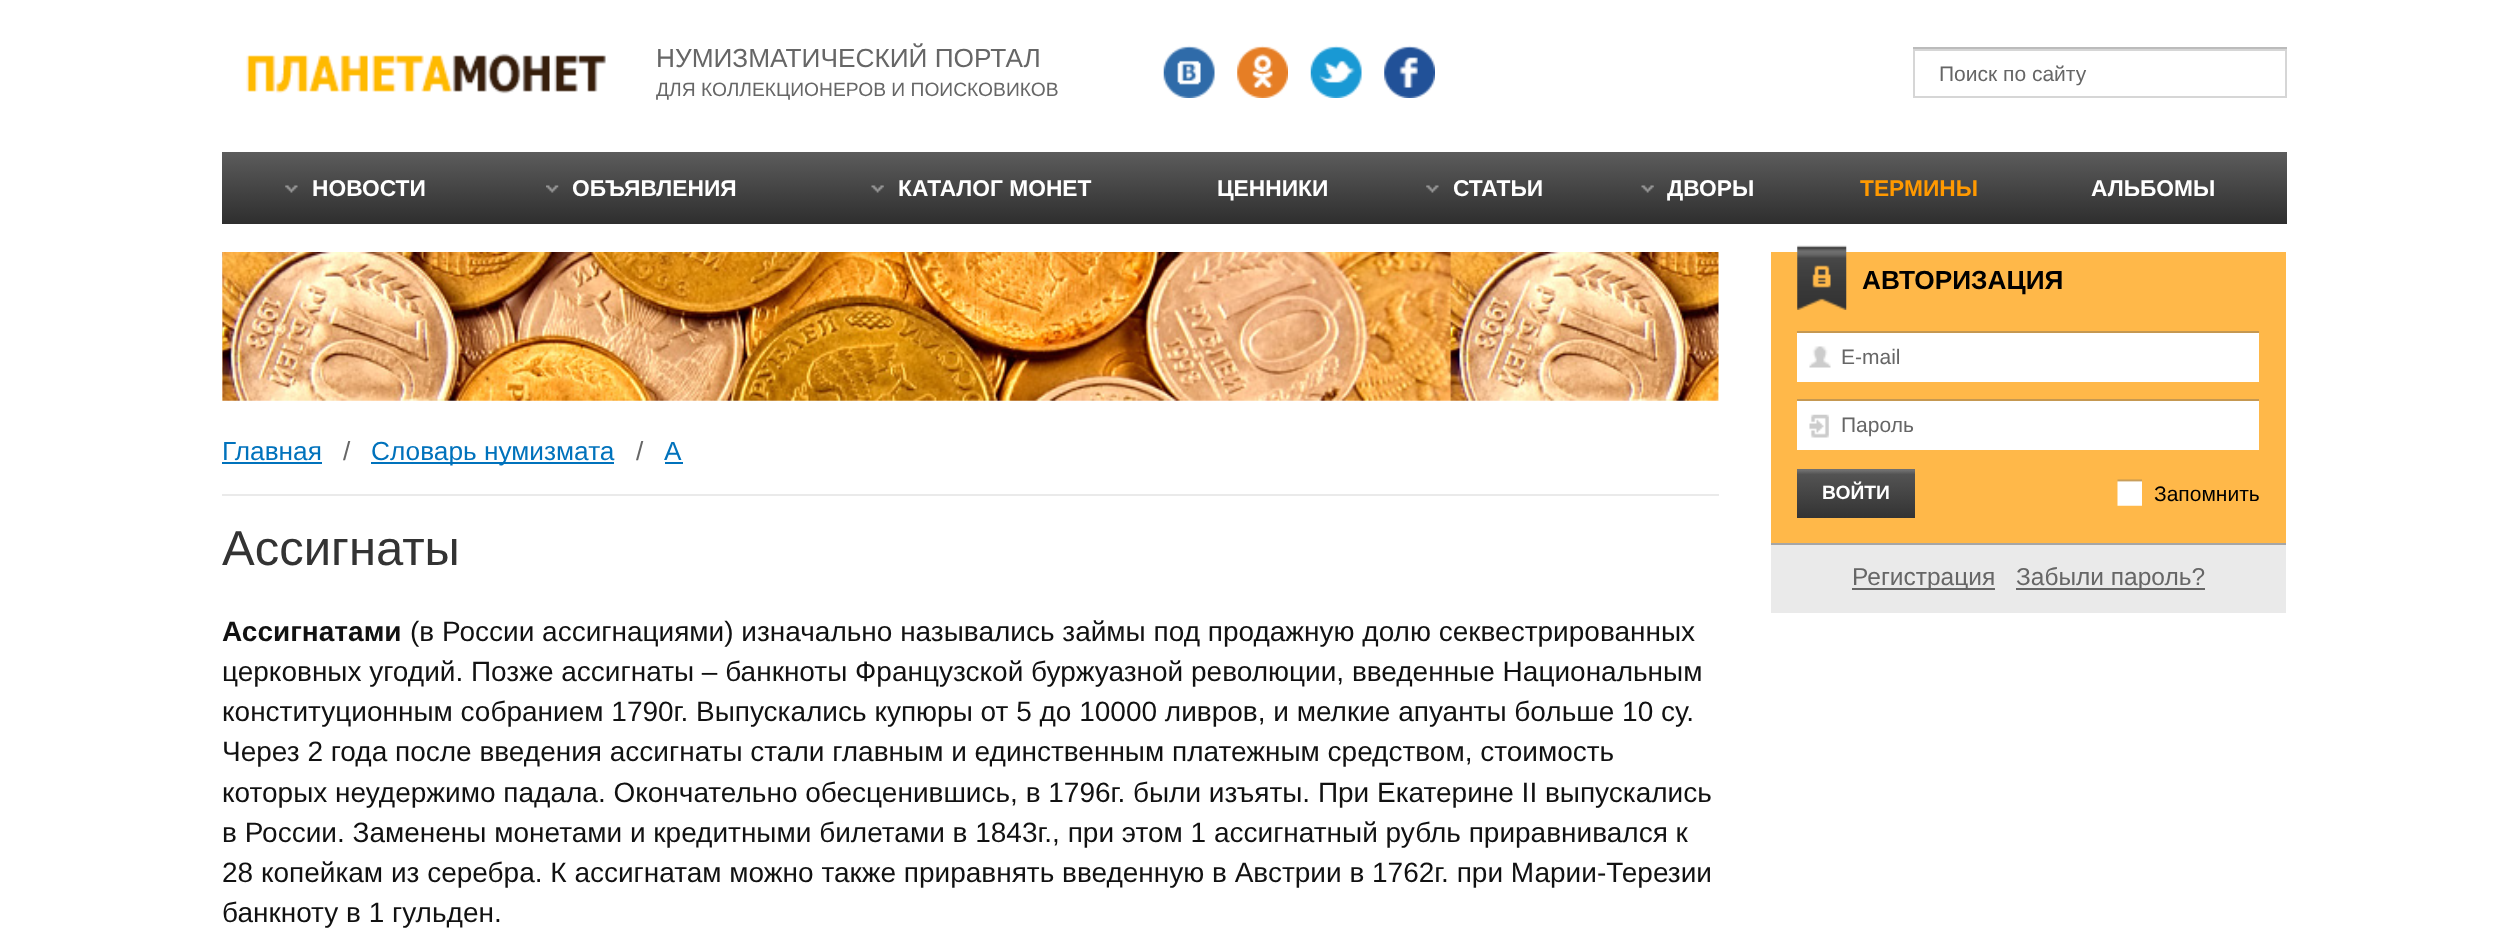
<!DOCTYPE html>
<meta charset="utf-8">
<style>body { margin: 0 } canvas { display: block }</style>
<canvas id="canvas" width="2509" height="950"></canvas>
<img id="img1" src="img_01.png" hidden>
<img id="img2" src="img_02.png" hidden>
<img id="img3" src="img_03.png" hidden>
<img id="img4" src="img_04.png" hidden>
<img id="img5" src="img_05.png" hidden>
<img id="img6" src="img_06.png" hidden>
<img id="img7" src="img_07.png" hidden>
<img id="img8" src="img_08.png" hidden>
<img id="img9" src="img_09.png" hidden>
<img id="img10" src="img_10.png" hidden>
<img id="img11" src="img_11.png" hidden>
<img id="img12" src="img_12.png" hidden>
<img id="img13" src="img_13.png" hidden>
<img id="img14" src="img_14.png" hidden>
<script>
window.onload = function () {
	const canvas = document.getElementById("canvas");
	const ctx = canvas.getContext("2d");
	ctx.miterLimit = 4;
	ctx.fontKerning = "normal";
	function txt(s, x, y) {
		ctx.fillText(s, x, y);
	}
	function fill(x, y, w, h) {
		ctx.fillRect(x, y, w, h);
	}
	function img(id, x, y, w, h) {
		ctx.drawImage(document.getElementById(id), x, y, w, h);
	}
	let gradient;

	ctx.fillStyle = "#FFFFFF";
	fill(0, 0, 2509, 950);
	img("img1", 246, 53, 360, 41);
	img("img2", 1163, 45, 52, 53);
	img("img3", 1237, 45, 51, 53);
	img("img4", 1310, 45, 52, 53);
	img("img5", 1384, 45, 51, 53);
	ctx.fillStyle = "#BBBBBB";
	fill(1913, 47, 374, 2);
	ctx.strokeStyle = "#D6D6D6";
	ctx.lineWidth = 2;
	ctx.strokeRect(1914, 50, 372, 47);
	gradient = ctx.createLinearGradient(1255, 152, 1255, 224);
	gradient.addColorStop(0, "#5C5C5C");
	gradient.addColorStop(1, "#2E2E2E");
	ctx.fillStyle = gradient;
	fill(222, 152, 2065, 72);
	img("img6", 285, 185, 13, 8);
	img("img7", 546, 185, 13, 8);
	img("img8", 871, 185, 13, 8);
	img("img6", 1426, 185, 13, 8);
	img("img9", 1641, 185, 13, 8);
	img("img10", 222, 252, 1497, 149);
	ctx.fillStyle = "#EAEAEA";
	fill(222, 494, 1497, 2);
	ctx.fillStyle = "#0072BC";
	fill(222, 462, 100, 2);
	fill(371, 462, 243, 2);
	fill(665, 462, 18, 2);
	ctx.fillStyle = "#FFB849";
	fill(1771, 252, 515, 291);
	img("img11", 1797, 245, 50, 65);
	ctx.fillStyle = "#FFFFFF";
	fill(1797, 333, 462, 49);
	img("img12", 1809, 346, 22, 22);
	ctx.fillStyle = "#C59851";
	fill(1797, 331, 462, 2);
	ctx.fillStyle = "#FFFFFF";
	fill(1797, 401, 462, 49);
	img("img13", 1809, 414, 20, 24);
	ctx.fillStyle = "#C59851";
	fill(1797, 399, 462, 2);
	gradient = ctx.createLinearGradient(1856, 469, 1856, 518);
	gradient.addColorStop(0, "#6F6F6F");
	gradient.addColorStop(0.03, "#6F6F6F");
	gradient.addColorStop(0.11, "#535353");
	gradient.addColorStop(1, "#333333");
	ctx.fillStyle = gradient;
	fill(1797, 469, 118, 49);
	img("img14", 2117, 479, 25, 27);
	ctx.fillStyle = "#EAEAEA";
	fill(1771, 545, 515, 68);
	ctx.fillStyle = "#A6A6A6";
	fill(1771, 543, 515, 2);
	ctx.fillStyle = "#666666";
	fill(1852, 588, 143, 2);
	fill(2016, 588, 189, 2);
	ctx.font = "26.25px Liberation Sans";
	txt("НУМИЗМАТИЧЕСКИЙ ПОРТАЛ", 656, 67);
	ctx.font = "19.25px Liberation Sans";
	txt("ДЛЯ КОЛЛЕКЦИОНЕРОВ И ПОИСКОВИКОВ", 656, 96);
	ctx.font = "21px Liberation Sans";
	txt("Поиск по сайту", 1939, 81);
	ctx.font = "bold 22.75px Liberation Sans";
	ctx.fillStyle = "#FFFFFF";
	txt("НОВОСТИ", 312, 196);
	txt("ОБЪЯВЛЕНИЯ", 572, 196);
	txt("КАТАЛОГ МОНЕТ", 898, 196);
	txt("ЦЕННИКИ", 1217, 196);
	txt("СТАТЬИ", 1453, 196);
	txt("ДВОРЫ", 1667, 196);
	ctx.fillStyle = "#FF9900";
	txt("ТЕРМИНЫ", 1860, 196);
	ctx.fillStyle = "#FFFFFF";
	txt("АЛЬБОМЫ", 2091, 196);
	ctx.font = "26.25px Liberation Sans";
	ctx.fillStyle = "#0072BC";
	txt("Главная", 222, 460);
	ctx.fillStyle = "#666666";
	txt("/", 343, 460);
	ctx.fillStyle = "#0072BC";
	txt("Словарь нумизмата", 371, 460);
	ctx.fillStyle = "#666666";
	txt("/", 636, 460);
	ctx.fillStyle = "#0072BC";
	txt("А", 664, 460);
	ctx.font = "49px Liberation Sans";
	ctx.fillStyle = "#333333";
	txt("Ассигнаты", 222, 565);
	ctx.font = "bold 28px Liberation Sans";
	ctx.fillStyle = "#111111";
	txt("Ассигнатами", 222, 641);
	ctx.font = "28px Liberation Sans";
	txt("(в России ассигнациями) изначально назывались займы под продажную долю секвестрированных", 410, 641);
	txt("церковных угодий. Позже ассигнаты – банкноты Французской буржуазной революции, введенные Национальным", 222, 681);
	txt("конституционным собранием 1790г. Выпускались купюры от 5 до 10000 ливров, и мелкие апуанты больше 10 су.", 222, 721);
	txt("Через 2 года после введения ассигнаты стали главным и единственным платежным средством, стоимость", 222, 761);
	txt("которых неудержимо падала. Окончательно обесценившись, в 1796г. были изъяты. При Екатерине II выпускались", 222, 802);
	txt("в России. Заменены монетами и кредитными билетами в 1843г., при этом 1 ассигнатный рубль приравнивался к", 222, 842);
	txt("28 копейкам из серебра. К ассигнатам можно также приравнять введенную в Австрии в 1762г. при Марии-Терезии", 222, 882);
	txt("банкноту в 1 гульден.", 222, 922);
	ctx.font = "bold 26.25px Liberation Sans";
	ctx.fillStyle = "#000000";
	txt("АВТОРИЗАЦИЯ", 1862, 289);
	ctx.font = "21px Liberation Sans";
	ctx.fillStyle = "#666666";
	txt("E-mail", 1841, 364);
	txt("Пароль", 1841, 432);
	ctx.font = "bold 19.25px Liberation Sans";
	ctx.fillStyle = "#FFFFFF";
	txt("ВОЙТИ", 1822, 499);
	ctx.font = "21px Liberation Sans";
	ctx.fillStyle = "#000000";
	txt("Запомнить", 2154, 501);
	ctx.font = "24.5px Liberation Sans";
	ctx.fillStyle = "#666666";
	txt("Регистрация", 1852, 585);
	txt("Забыли пароль?", 2016, 585);
};
</script>
